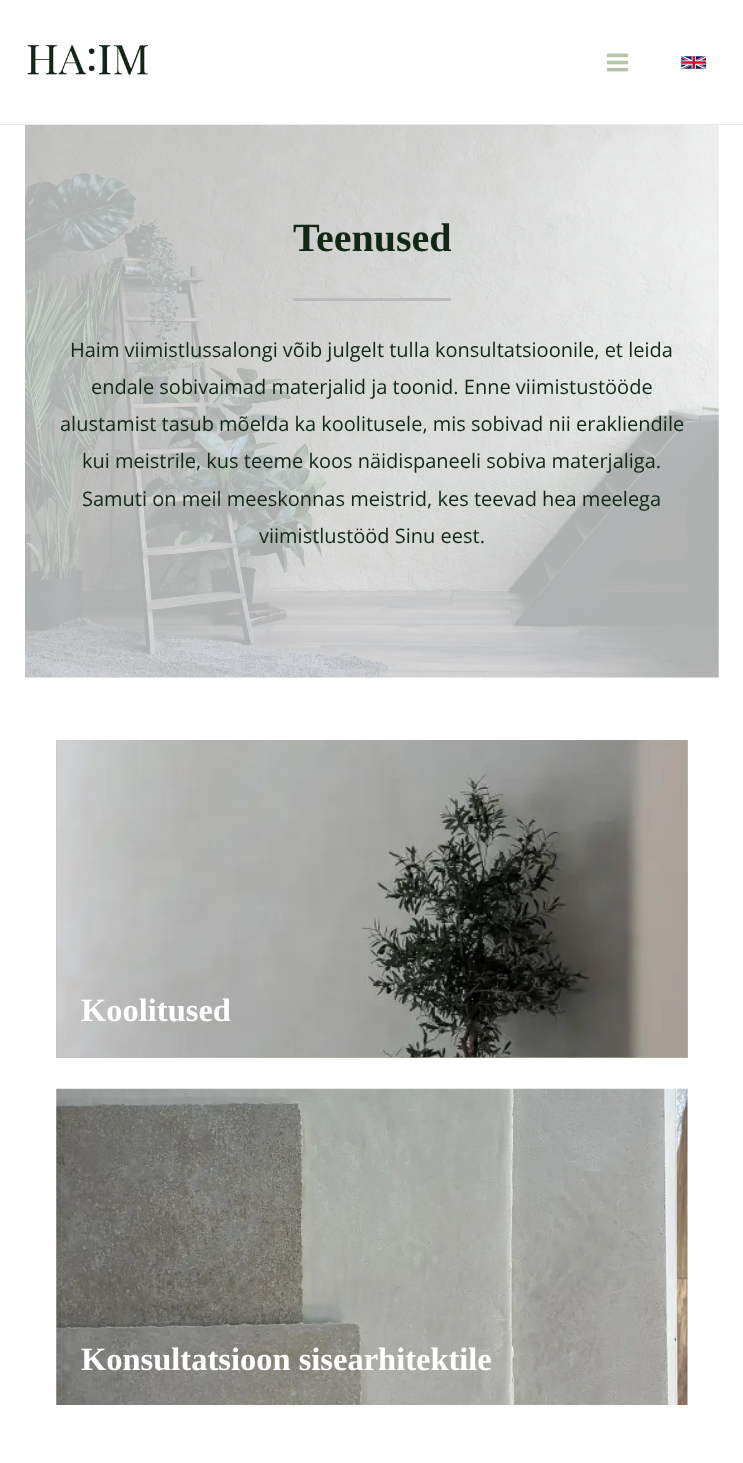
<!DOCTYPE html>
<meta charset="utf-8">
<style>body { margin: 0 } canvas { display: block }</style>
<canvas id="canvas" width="743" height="1463"></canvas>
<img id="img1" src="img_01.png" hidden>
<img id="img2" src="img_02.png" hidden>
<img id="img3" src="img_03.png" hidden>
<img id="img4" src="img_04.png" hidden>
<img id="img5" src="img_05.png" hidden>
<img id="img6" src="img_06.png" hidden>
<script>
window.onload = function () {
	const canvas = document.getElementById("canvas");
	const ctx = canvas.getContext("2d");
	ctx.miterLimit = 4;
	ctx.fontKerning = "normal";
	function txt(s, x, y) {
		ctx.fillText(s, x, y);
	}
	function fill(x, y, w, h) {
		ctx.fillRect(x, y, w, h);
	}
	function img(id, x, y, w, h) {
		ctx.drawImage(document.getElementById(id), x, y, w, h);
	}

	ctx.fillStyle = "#FFFFFF";
	fill(0, 0, 743, 1463);
	ctx.fillStyle = "#F5F8F7";
	fill(25, 125, 694, 553);
	ctx.fillStyle = "#EAEAEA";
	fill(0, 124, 743, 1);
	img("img1", 27, 45, 121, 30);
	img("img2", 606, 53, 23, 19);
	img("img3", 681, 56, 25, 13);
	img("img4", 25, 125, 694, 553);
	ctx.fillStyle = "#BBBBBB";
	fill(293, 298, 158, 3);
	ctx.fillStyle = "#B6C2AA";
	fill(56, 740, 632, 318);
	img("img5", 56, 740, 632, 318);
	img("img6", 56, 1088, 632, 317);
	ctx.font = "bold 40px Liberation Serif";
	ctx.fillStyle = "#122716";
	txt("Teenused", 293, 251);
	ctx.font = "20px Open Sans";
	txt("Haim viimistlussalongi võib julgelt tulla konsultatsioonile, et leida", 70, 357);
	txt("endale sobivaimad materjalid ja toonid. Enne viimistustööde", 91, 394);
	txt("alustamist tasub mõelda ka koolitusele, mis sobivad nii erakliendile", 60, 431);
	txt("kui meistrile, kus teeme koos näidispaneeli sobiva materjaliga.", 82, 468);
	txt("Samuti on meil meeskonnas meistrid, kes teevad hea meelega", 82, 506);
	txt("viimistlustööd Sinu eest.", 259, 543);
	ctx.font = "bold 32.5px Liberation Serif";
	ctx.fillStyle = "#FFFFFF";
	txt("Koolitused", 81, 1021);
	txt("Konsultatsioon sisearhitektile", 81, 1370);
};
</script>
